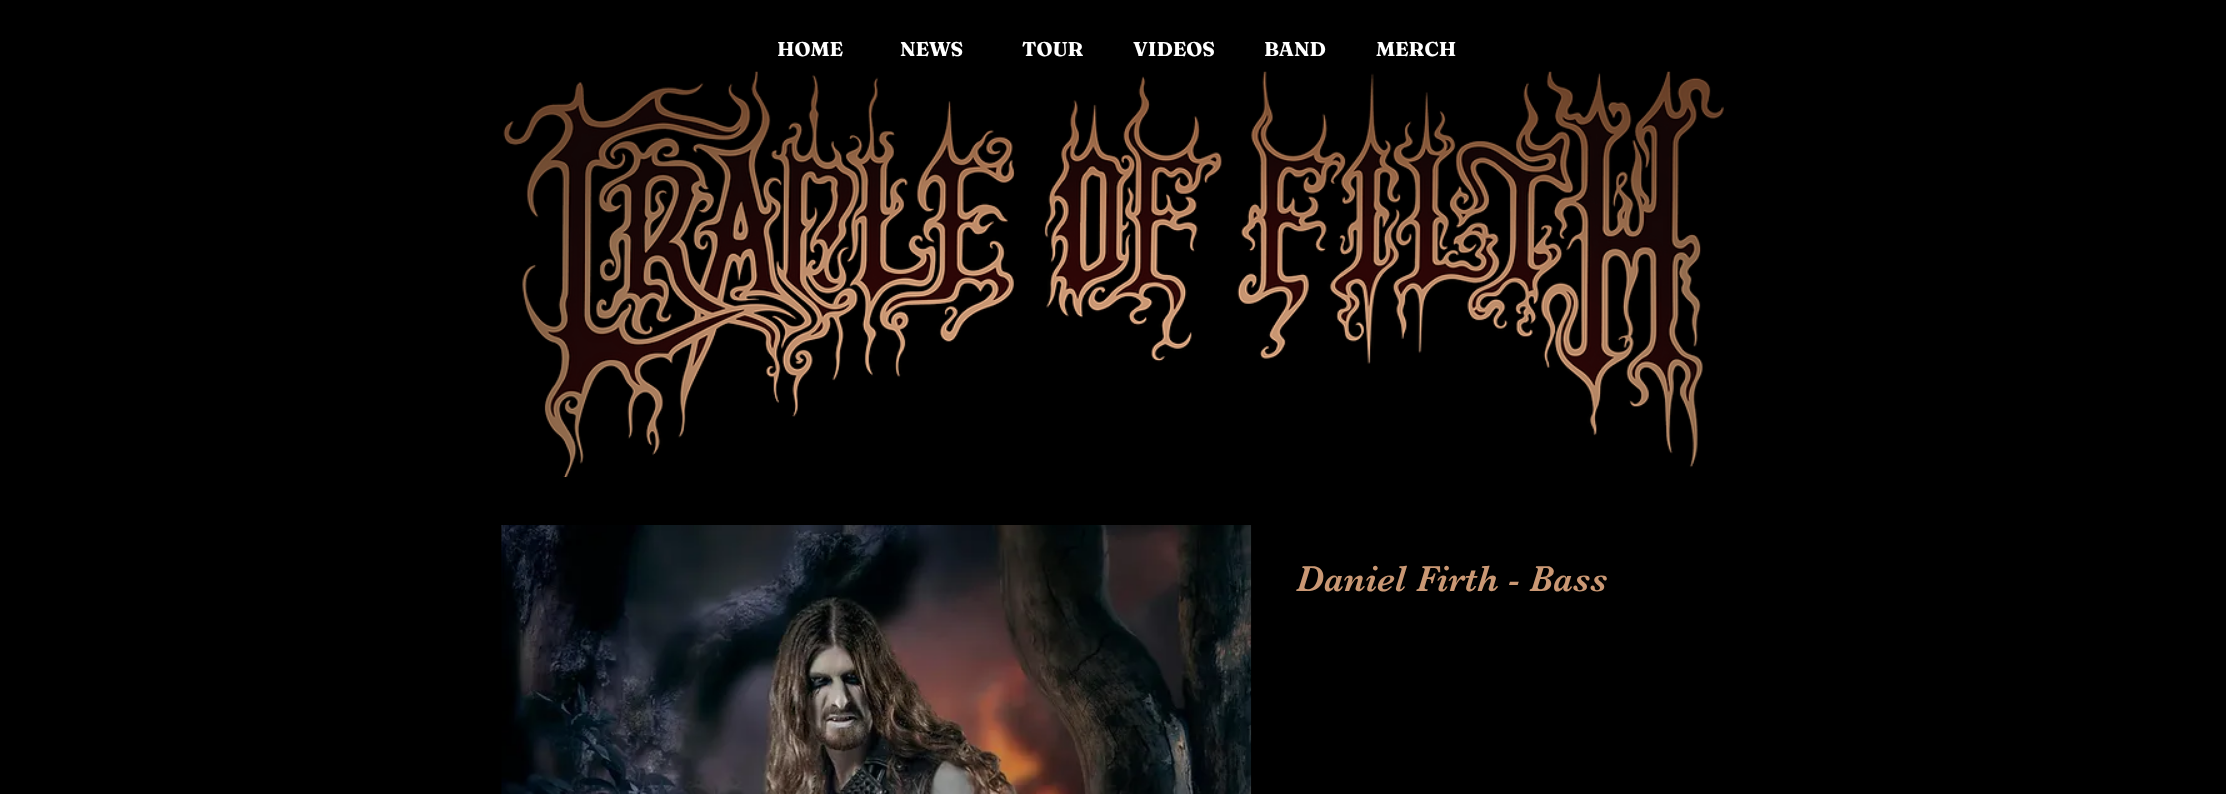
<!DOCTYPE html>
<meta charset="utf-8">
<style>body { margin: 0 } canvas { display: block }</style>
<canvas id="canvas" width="2226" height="794"></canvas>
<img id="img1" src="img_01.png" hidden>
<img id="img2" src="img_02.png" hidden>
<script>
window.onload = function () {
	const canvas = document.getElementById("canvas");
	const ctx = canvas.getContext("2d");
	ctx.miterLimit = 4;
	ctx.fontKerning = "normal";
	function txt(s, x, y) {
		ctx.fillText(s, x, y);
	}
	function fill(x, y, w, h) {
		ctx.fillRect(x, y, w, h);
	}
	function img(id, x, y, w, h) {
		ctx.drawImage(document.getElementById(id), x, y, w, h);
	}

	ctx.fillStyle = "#000000";
	fill(0, 0, 2226, 794);
	img("img1", 503, 71, 1221, 407);
	img("img2", 501, 525, 751, 269);
	ctx.font = "bold 20px Fraunces";
	ctx.fillStyle = "#FFFFFF";
	txt("HOME", 777, 56);
	txt("NEWS", 900, 56);
	txt("TOUR", 1022, 56);
	txt("VIDEOS", 1133, 56);
	txt("BAND", 1264, 56);
	txt("MERCH", 1376, 56);
	ctx.font = "37.5px 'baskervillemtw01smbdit'";
	ctx.fillStyle = "#CA9874";
	txt("Daniel Firth - Bass", 1296, 591);
};
</script>
